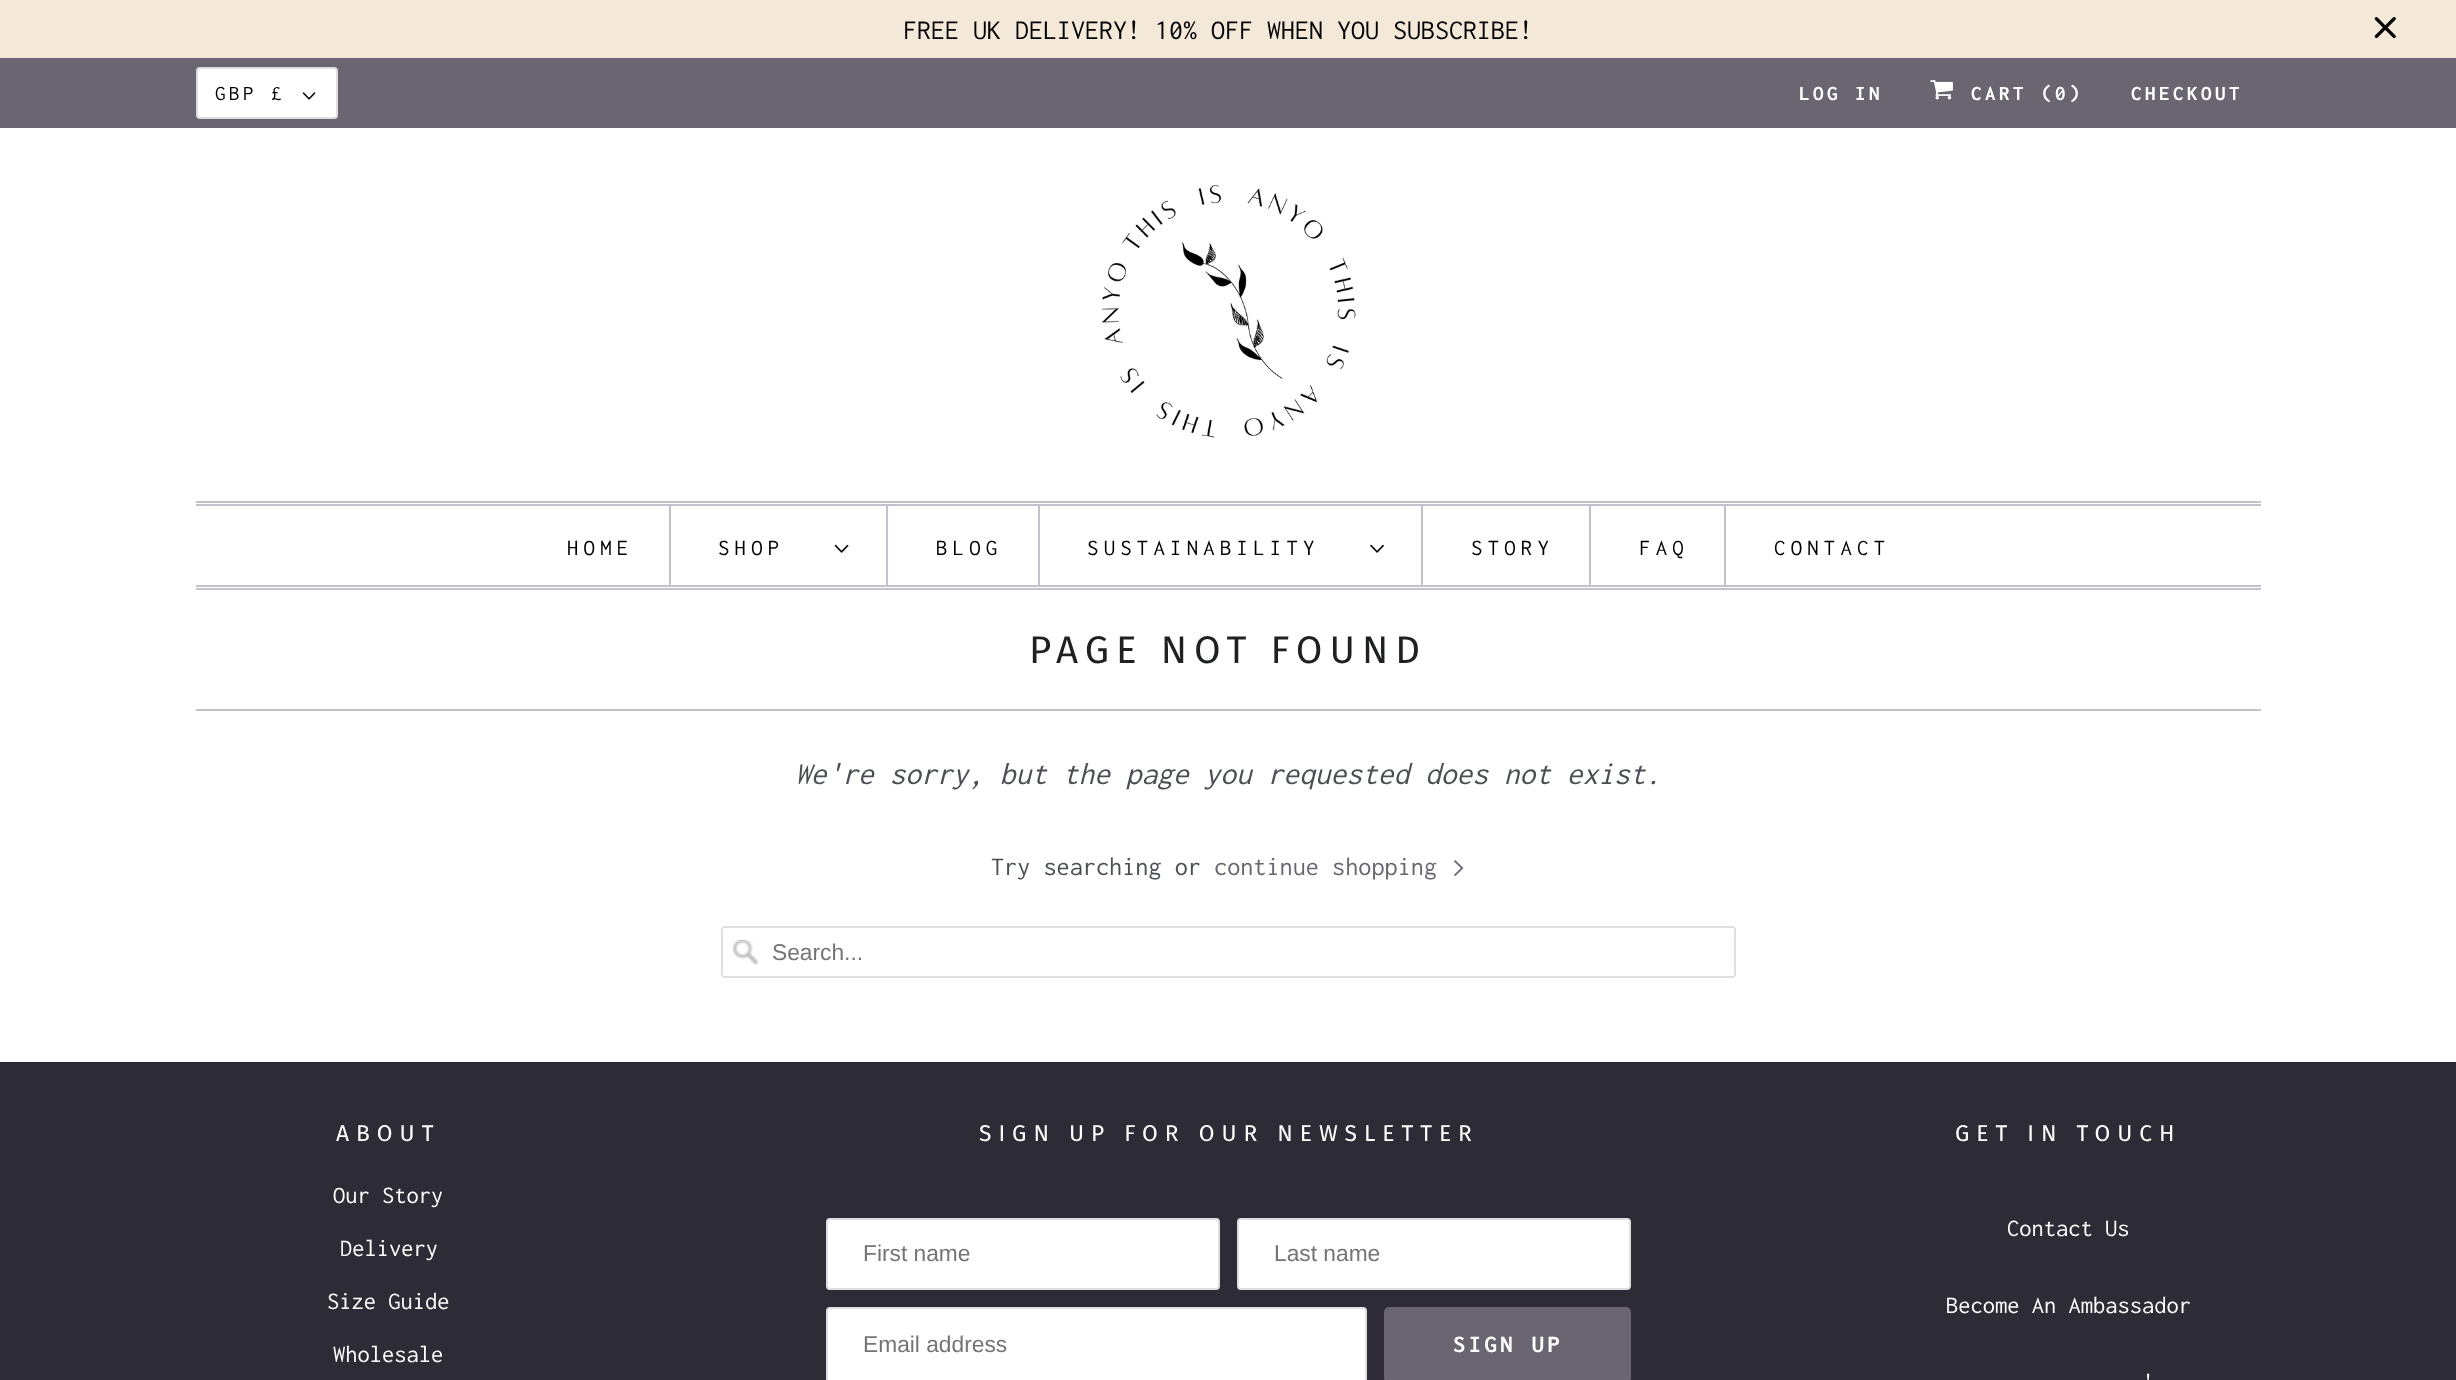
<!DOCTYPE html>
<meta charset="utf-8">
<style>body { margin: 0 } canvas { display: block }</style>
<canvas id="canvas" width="2456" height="1380"></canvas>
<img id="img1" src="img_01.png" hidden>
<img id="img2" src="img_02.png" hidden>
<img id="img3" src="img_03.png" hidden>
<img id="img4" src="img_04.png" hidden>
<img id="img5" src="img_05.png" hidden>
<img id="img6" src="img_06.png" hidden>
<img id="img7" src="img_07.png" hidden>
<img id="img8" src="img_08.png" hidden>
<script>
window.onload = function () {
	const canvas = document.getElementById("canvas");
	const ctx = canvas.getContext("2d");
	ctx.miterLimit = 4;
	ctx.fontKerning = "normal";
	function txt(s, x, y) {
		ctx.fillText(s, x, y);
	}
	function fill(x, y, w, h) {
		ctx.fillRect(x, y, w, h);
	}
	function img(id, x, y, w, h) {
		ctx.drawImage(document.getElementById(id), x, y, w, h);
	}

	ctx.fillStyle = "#FFFFFF";
	fill(0, 0, 2456, 1380);
	ctx.fillStyle = "#F4E9D9";
	fill(0, 0, 2456, 58);
	img("img1", 2374, 17, 22, 22);
	ctx.fillStyle = "#6A6671";
	fill(0, 58, 2456, 70);
	ctx.fillStyle = "#FFFFFF";
	ctx.beginPath();
	ctx.roundRect(197, 68, 140, 50, 3);
	ctx.fill();
	ctx.strokeStyle = "#DFDFDF";
	ctx.lineWidth = 2;
	ctx.stroke();
	img("img2", 302, 92, 14, 8);
	img("img3", 1930, 80, 23, 20);
	img("img4", 1101, 185, 255, 253);
	ctx.fillStyle = "#C2C1CC";
	fill(196, 501, 2065, 2);
	fill(196, 504, 2065, 2);
	fill(196, 585, 2065, 2);
	fill(196, 588, 2065, 2);
	fill(669, 506, 2, 79);
	fill(886, 506, 2, 79);
	img("img5", 834, 544, 15, 9);
	fill(1038, 506, 2, 79);
	fill(1421, 506, 2, 79);
	img("img6", 1370, 544, 14, 9);
	fill(1589, 506, 2, 79);
	fill(1724, 506, 2, 79);
	fill(196, 709, 2065, 2);
	img("img7", 1454, 860, 10, 16);
	img("img8", 733, 939, 25, 26);
	ctx.beginPath();
	ctx.roundRect(722, 927, 1013, 50, 3);
	ctx.stroke();
	ctx.fillStyle = "#2D2B35";
	fill(0, 1062, 2456, 318);
	ctx.fillStyle = "#FFFFFF";
	ctx.beginPath();
	ctx.roundRect(827, 1219, 392, 70, 3);
	ctx.fill();
	ctx.stroke();
	ctx.beginPath();
	ctx.roundRect(1238, 1219, 392, 70, 3);
	ctx.fill();
	ctx.stroke();
	ctx.beginPath();
	ctx.roundRect(827, 1308, 539, 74, 3);
	ctx.fill();
	ctx.stroke();
	ctx.fillStyle = "#6A6671";
	ctx.beginPath();
	ctx.roundRect(1385, 1308, 245, 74, 4);
	ctx.fill();
	ctx.strokeStyle = "#6A6671";
	ctx.stroke();
	ctx.font = "28px Inconsolata";
	ctx.fillStyle = "#000000";
	txt("FREE UK DELIVERY! 10% OFF WHEN YOU SUBSCRIBE!", 903, 39);
	ctx.letterSpacing = "3.5px";
	ctx.font = "21px Inconsolata";
	txt("GBP £", 215, 100);
	ctx.font = "bold 21px Inconsolata";
	ctx.fillStyle = "#FFFFFF";
	txt("LOG IN", 1799, 100);
	txt("CART (0)", 1971, 100);
	txt("CHECKOUT", 2131, 100);
	ctx.letterSpacing = "5.25px";
	ctx.font = "22.75px Inconsolata";
	ctx.fillStyle = "#000000";
	txt("HOME", 567, 555);
	txt("SHOP", 718, 555);
	txt("BLOG", 936, 555);
	txt("SUSTAINABILITY", 1087, 555);
	txt("STORY", 1471, 555);
	txt("FAQ", 1639, 555);
	txt("CONTACT", 1774, 555);
	ctx.letterSpacing = "7px";
	ctx.font = "38.5px Fira Sans";
	ctx.fillStyle = "#1F2022";
	txt("PAGE NOT FOUND", 1029, 663);
	ctx.letterSpacing = "0px";
	ctx.font = "italic 31.5px Inconsolata";
	ctx.fillStyle = "#4B4F54";
	txt("We're sorry, but the page you requested does not exist.", 795, 784);
	ctx.font = "26.25px Inconsolata";
	txt("Try searching or", 991, 875);
	ctx.fillStyle = "#6A6671";
	txt("continue shopping", 1214, 875);
	ctx.font = "22.75px Liberation Sans";
	ctx.fillStyle = "#757575";
	txt("Search...", 772, 960);
	ctx.letterSpacing = "7px";
	ctx.font = "22.75px Fira Sans";
	ctx.fillStyle = "#FFFFFF";
	txt("ABOUT", 336, 1141);
	ctx.letterSpacing = "0px";
	ctx.font = "24.5px Inconsolata";
	txt("Our Story", 333, 1203);
	txt("Delivery", 340, 1256);
	txt("Size Guide", 327, 1309);
	txt("Wholesale", 333, 1362);
	ctx.letterSpacing = "7px";
	ctx.font = "22.75px Fira Sans";
	txt("SIGN UP FOR OUR NEWSLETTER", 979, 1141);
	ctx.letterSpacing = "0px";
	ctx.font = "22.75px Liberation Sans";
	ctx.fillStyle = "#757575";
	txt("First name", 863, 1261);
	txt("Last name", 1274, 1261);
	txt("Email address", 863, 1352);
	ctx.letterSpacing = "3.5px";
	ctx.font = "bold 24.5px Inconsolata";
	ctx.fillStyle = "#FFFFFF";
	txt("SIGN UP", 1453, 1352);
	ctx.letterSpacing = "7px";
	ctx.font = "22.75px Fira Sans";
	txt("GET IN TOUCH", 1955, 1141);
	ctx.letterSpacing = "0px";
	ctx.font = "24.5px Inconsolata";
	txt("Contact Us", 2007, 1236);
	txt("Become An Ambassador", 1946, 1313);
	txt("'", 2142, 1390);
};
</script>
